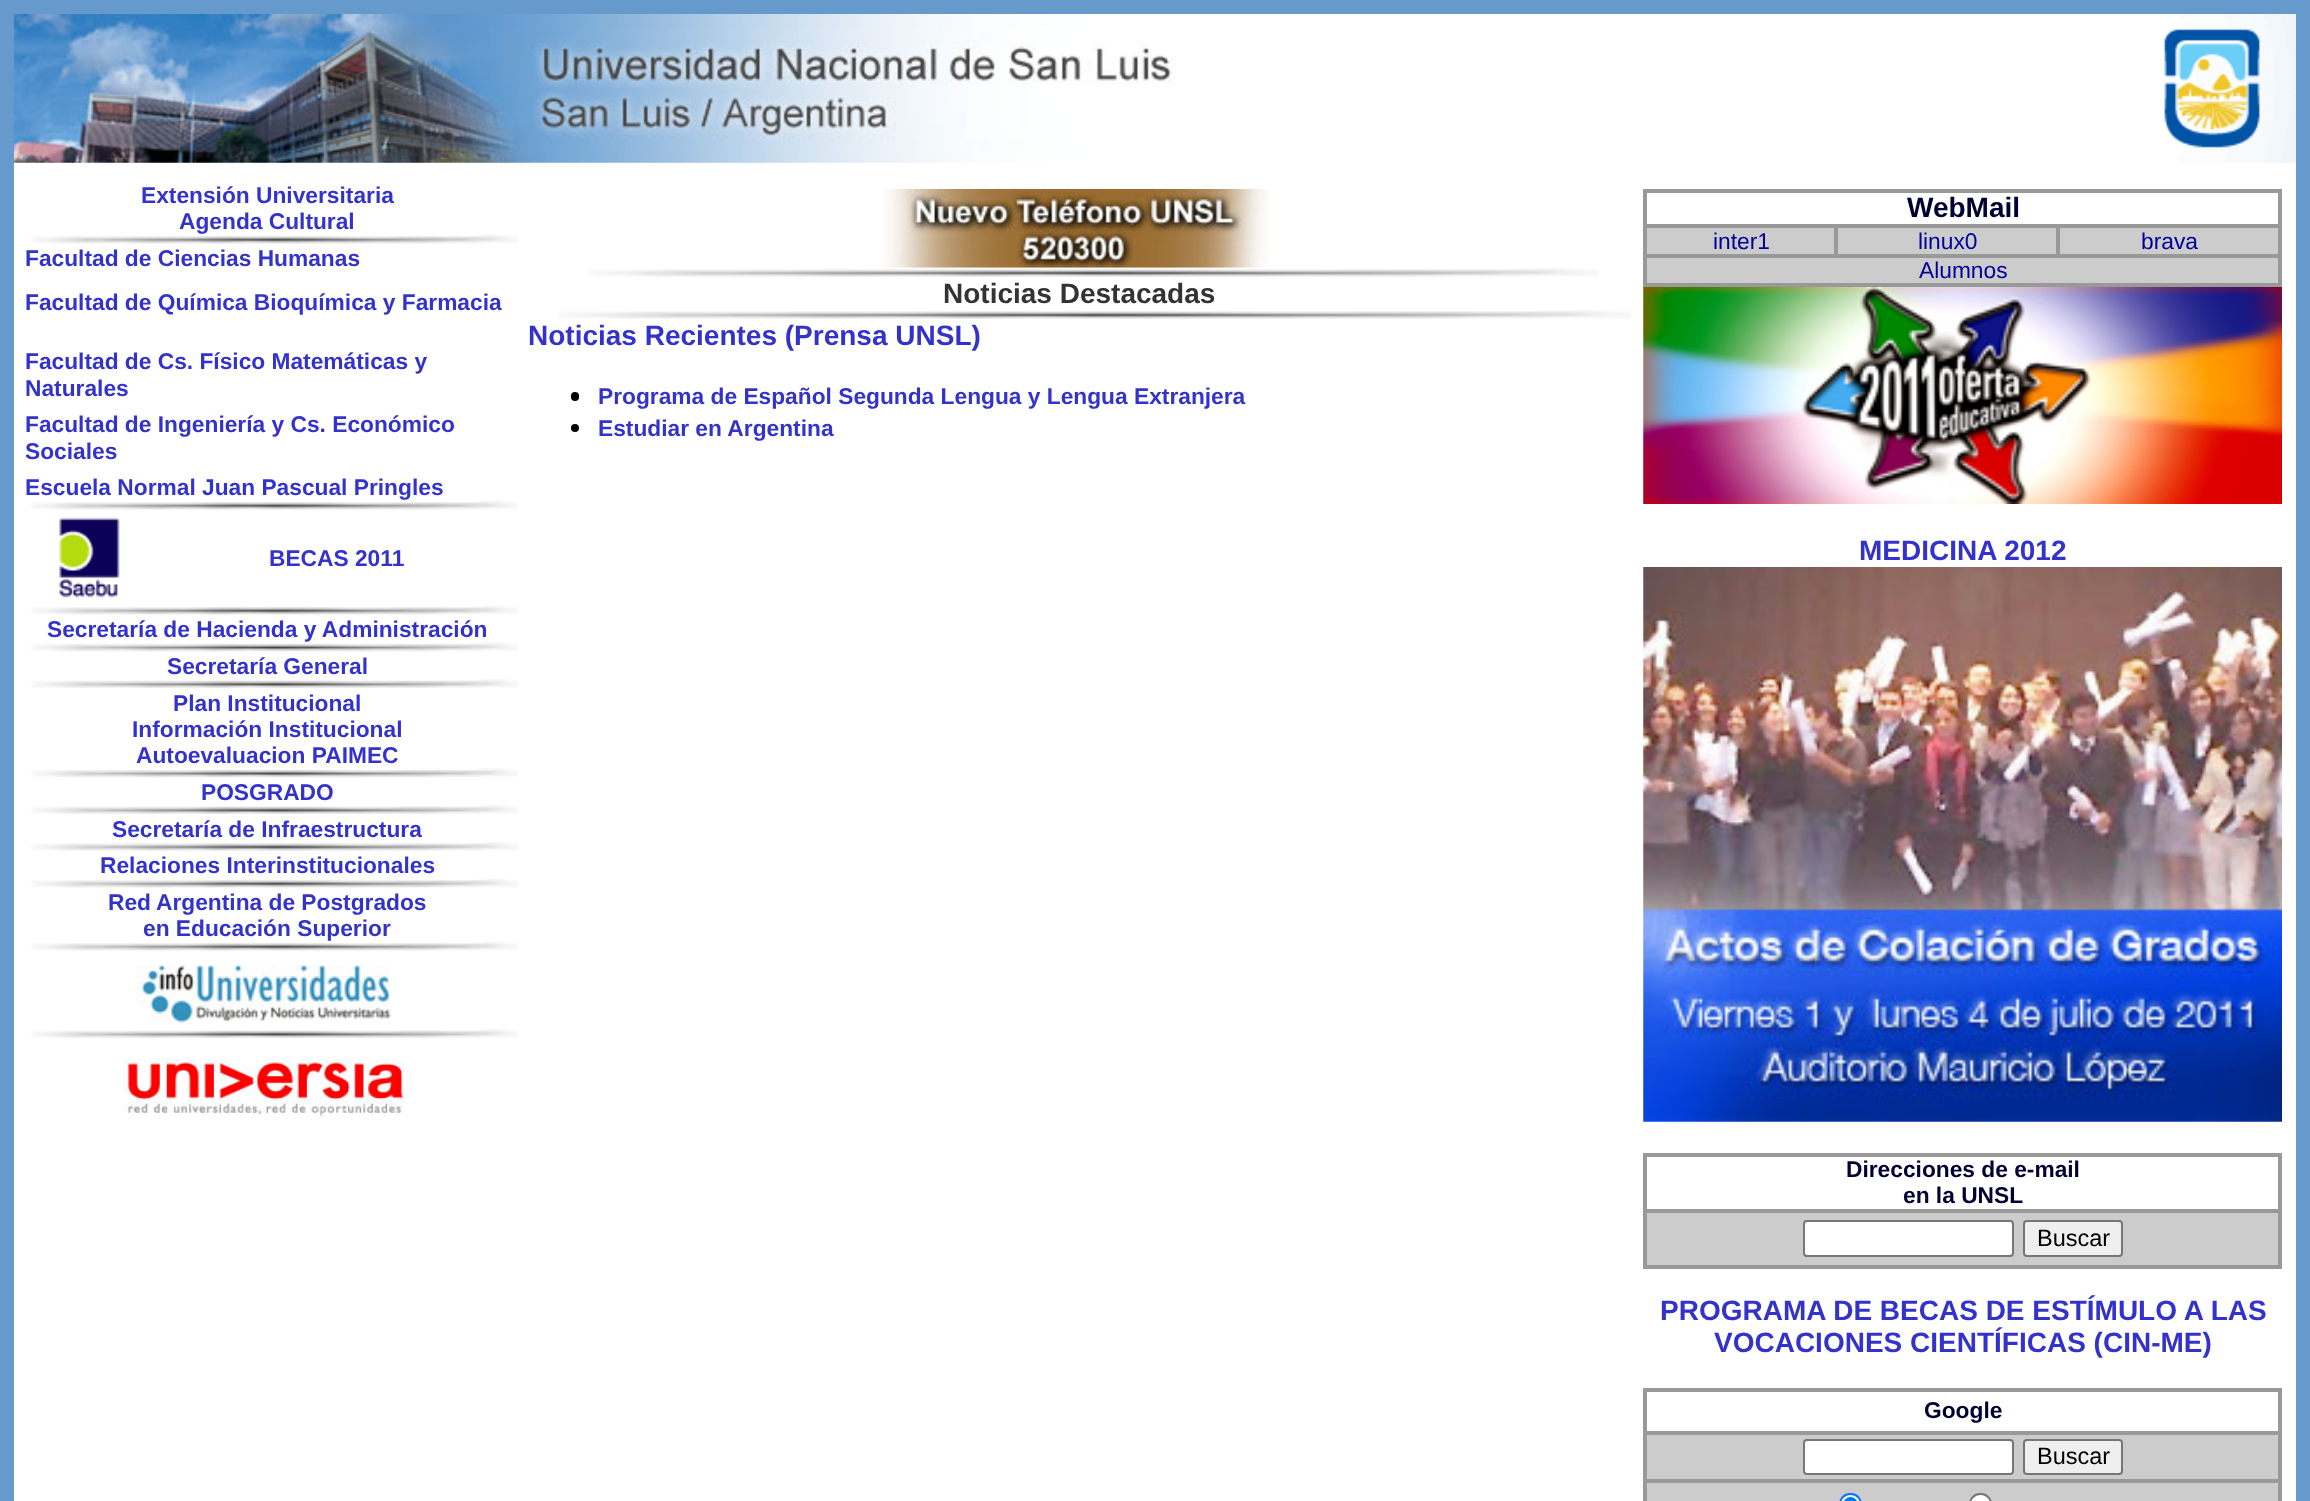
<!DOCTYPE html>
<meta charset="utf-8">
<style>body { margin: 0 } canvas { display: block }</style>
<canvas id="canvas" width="2310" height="1501"></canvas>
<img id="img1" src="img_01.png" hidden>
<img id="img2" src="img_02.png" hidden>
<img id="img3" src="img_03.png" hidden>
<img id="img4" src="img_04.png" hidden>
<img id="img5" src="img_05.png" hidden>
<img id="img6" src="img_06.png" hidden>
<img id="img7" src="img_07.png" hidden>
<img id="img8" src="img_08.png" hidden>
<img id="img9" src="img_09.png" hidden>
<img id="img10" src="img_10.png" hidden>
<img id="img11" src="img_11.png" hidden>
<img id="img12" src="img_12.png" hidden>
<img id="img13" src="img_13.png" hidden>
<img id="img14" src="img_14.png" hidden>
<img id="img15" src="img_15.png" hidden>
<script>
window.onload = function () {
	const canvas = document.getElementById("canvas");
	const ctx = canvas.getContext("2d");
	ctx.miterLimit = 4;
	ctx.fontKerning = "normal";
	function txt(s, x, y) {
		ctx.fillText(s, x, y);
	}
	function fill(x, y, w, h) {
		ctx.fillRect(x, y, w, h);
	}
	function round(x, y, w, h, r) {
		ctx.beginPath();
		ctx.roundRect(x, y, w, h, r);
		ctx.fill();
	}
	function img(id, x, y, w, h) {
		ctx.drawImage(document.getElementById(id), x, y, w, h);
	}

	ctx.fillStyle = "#6699CC";
	fill(0, 0, 2310, 1501);
	ctx.fillStyle = "#FFFFFF";
	fill(14, 14, 2282, 1487);
	img("img1", 14, 14, 1161, 149);
	img("img2", 2164, 14, 132, 149);
	img("img3", 31, 234, 487, 10);
	img("img3", 31, 500, 487, 10);
	img("img4", 59, 517, 61, 81);
	img("img3", 31, 605, 487, 10);
	img("img5", 31, 642, 487, 10);
	img("img6", 31, 679, 487, 9);
	img("img7", 31, 768, 487, 10);
	img("img6", 31, 805, 487, 9);
	img("img8", 31, 842, 487, 9);
	img("img3", 31, 878, 487, 10);
	img("img3", 31, 941, 487, 10);
	img("img9", 136, 965, 256, 58);
	img("img6", 31, 1029, 487, 9);
	img("img10", 122, 1058, 283, 59);
	img("img11", 883, 189, 386, 79);
	img("img12", 588, 267, 1010, 10);
	img("img13", 558, 310, 1073, 9);
	ctx.fillStyle = "#000000";
	round(571, 392, 8, 9, 4);
	ctx.beginPath();
	ctx.arc(575, 428, 4, 0, Math.PI * 2);
	ctx.fill();
	ctx.fillStyle = "#CCCCCC";
	fill(1647, 228, 631, 55);
	ctx.strokeStyle = "#999999";
	ctx.lineWidth = 2;
	ctx.strokeRect(1644, 190, 637, 96);
	ctx.strokeRect(1646, 192, 633, 33);
	ctx.strokeRect(1646, 227, 189, 28);
	ctx.strokeRect(1837, 227, 220, 28);
	ctx.strokeRect(2059, 227, 220, 28);
	ctx.strokeRect(1646, 257, 633, 27);
	img("img14", 1643, 287, 639, 217);
	img("img15", 1643, 567, 639, 555);
	fill(1647, 1213, 631, 52);
	ctx.strokeRect(1644, 1154, 637, 114);
	ctx.strokeRect(1646, 1156, 633, 54);
	ctx.strokeRect(1646, 1212, 633, 54);
	ctx.fillStyle = "#FFFFFF";
	ctx.beginPath();
	ctx.roundRect(1804, 1221, 209, 35, 3);
	ctx.fill();
	ctx.strokeStyle = "#767676";
	ctx.stroke();
	ctx.fillStyle = "#EFEFEF";
	ctx.beginPath();
	ctx.roundRect(2024, 1221, 98, 35, 3);
	ctx.fill();
	ctx.stroke();
	ctx.fillStyle = "#CCCCCC";
	fill(1647, 1435, 631, 66);
	ctx.strokeStyle = "#999999";
	ctx.strokeRect(1644, 1389, 637, 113);
	ctx.strokeRect(1646, 1391, 633, 41);
	ctx.strokeRect(1646, 1434, 633, 46);
	ctx.fillStyle = "#FFFFFF";
	ctx.beginPath();
	ctx.roundRect(1804, 1440, 209, 34, 3);
	ctx.fill();
	ctx.strokeStyle = "#767676";
	ctx.stroke();
	ctx.fillStyle = "#EFEFEF";
	ctx.beginPath();
	ctx.roundRect(2024, 1440, 98, 34, 3);
	ctx.fill();
	ctx.stroke();
	ctx.strokeStyle = "#999999";
	ctx.strokeRect(1646, 1482, 633, 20);
	ctx.fillStyle = "#FFFFFF";
	ctx.beginPath();
	ctx.roundRect(1840, 1494, 21, 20, 10.5);
	ctx.fill();
	ctx.strokeStyle = "#0075FF";
	ctx.stroke();
	ctx.fillStyle = "#0075FF";
	ctx.beginPath();
	ctx.arc(1850.5, 1504, 7, 0, Math.PI * 2);
	ctx.fill();
	ctx.fillStyle = "#FFFFFF";
	ctx.beginPath();
	ctx.roundRect(1970, 1494, 21, 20, 10.5);
	ctx.fill();
	ctx.strokeStyle = "#767676";
	ctx.stroke();
	ctx.font = "bold 22.75px Liberation Sans";
	ctx.fillStyle = "#3333CC";
	txt("Extensión Universitaria", 141, 203);
	txt("Agenda Cultural", 179, 229);
	txt("Facultad de Ciencias Humanas", 25, 266);
	txt("Facultad de Química Bioquímica y Farmacia", 25, 310);
	txt("Facultad de Cs. Físico Matemáticas y", 25, 369);
	txt("Naturales", 25, 396);
	txt("Facultad de Ingeniería y Cs. Económico", 25, 432);
	txt("Sociales", 25, 459);
	txt("Escuela Normal Juan Pascual Pringles", 25, 495);
	txt("BECAS 2011", 269, 566);
	txt("Secretaría de Hacienda y Administración", 47, 637);
	txt("Secretaría General", 167, 674);
	txt("Plan Institucional", 173, 711);
	txt("Información Institucional", 132, 737);
	txt("Autoevaluacion PAIMEC", 136, 763);
	txt("POSGRADO", 201, 800);
	txt("Secretaría de Infraestructura", 112, 837);
	txt("Relaciones Interinstitucionales", 100, 873);
	txt("Red", 108, 910);
	txt("Argentina de Postgrados", 156, 910);
	txt("en Educación Superior", 143, 936);
	ctx.font = "bold 28px Liberation Sans";
	ctx.fillStyle = "#333333";
	txt("Noticias Destacadas", 943, 303);
	ctx.fillStyle = "#3333CC";
	txt("Noticias Recientes (Prensa UNSL)", 528, 345);
	ctx.font = "bold 22.75px Liberation Sans";
	txt("Programa de Español Segunda Lengua y Lengua Extranjera", 598, 404);
	txt("Estudiar en Argentina", 598, 436);
	ctx.font = "bold 28px Liberation Sans";
	ctx.fillStyle = "#000033";
	txt("WebMail", 1907, 217);
	ctx.font = "22.75px Liberation Sans";
	ctx.fillStyle = "#000099";
	txt("inter1", 1713, 249);
	txt("linux0", 1918, 249);
	txt("brava", 2141, 249);
	txt("Alumnos", 1919, 278);
	ctx.font = "bold 28px Liberation Sans";
	ctx.fillStyle = "#3333CC";
	txt("MEDICINA 2012", 1859, 560);
	ctx.font = "bold 22.75px Liberation Sans";
	ctx.fillStyle = "#000033";
	txt("Direcciones de e-mail", 1846, 1177);
	txt("en la UNSL", 1903, 1203);
	ctx.font = "23.5px Liberation Sans";
	ctx.fillStyle = "#000000";
	txt("Buscar", 2037, 1246);
	ctx.font = "bold 28px Liberation Sans";
	ctx.fillStyle = "#3333CC";
	txt("PROGRAMA DE BECAS DE ESTÍMULO A LAS", 1660, 1320);
	txt("VOCACIONES CIENTÍFICAS (CIN-ME)", 1714, 1352);
	ctx.font = "bold 22.75px Liberation Sans";
	ctx.fillStyle = "#000033";
	txt("Google", 1924, 1418);
	ctx.font = "23.5px Liberation Sans";
	ctx.fillStyle = "#000000";
	txt("Buscar", 2037, 1464);
};
</script>
